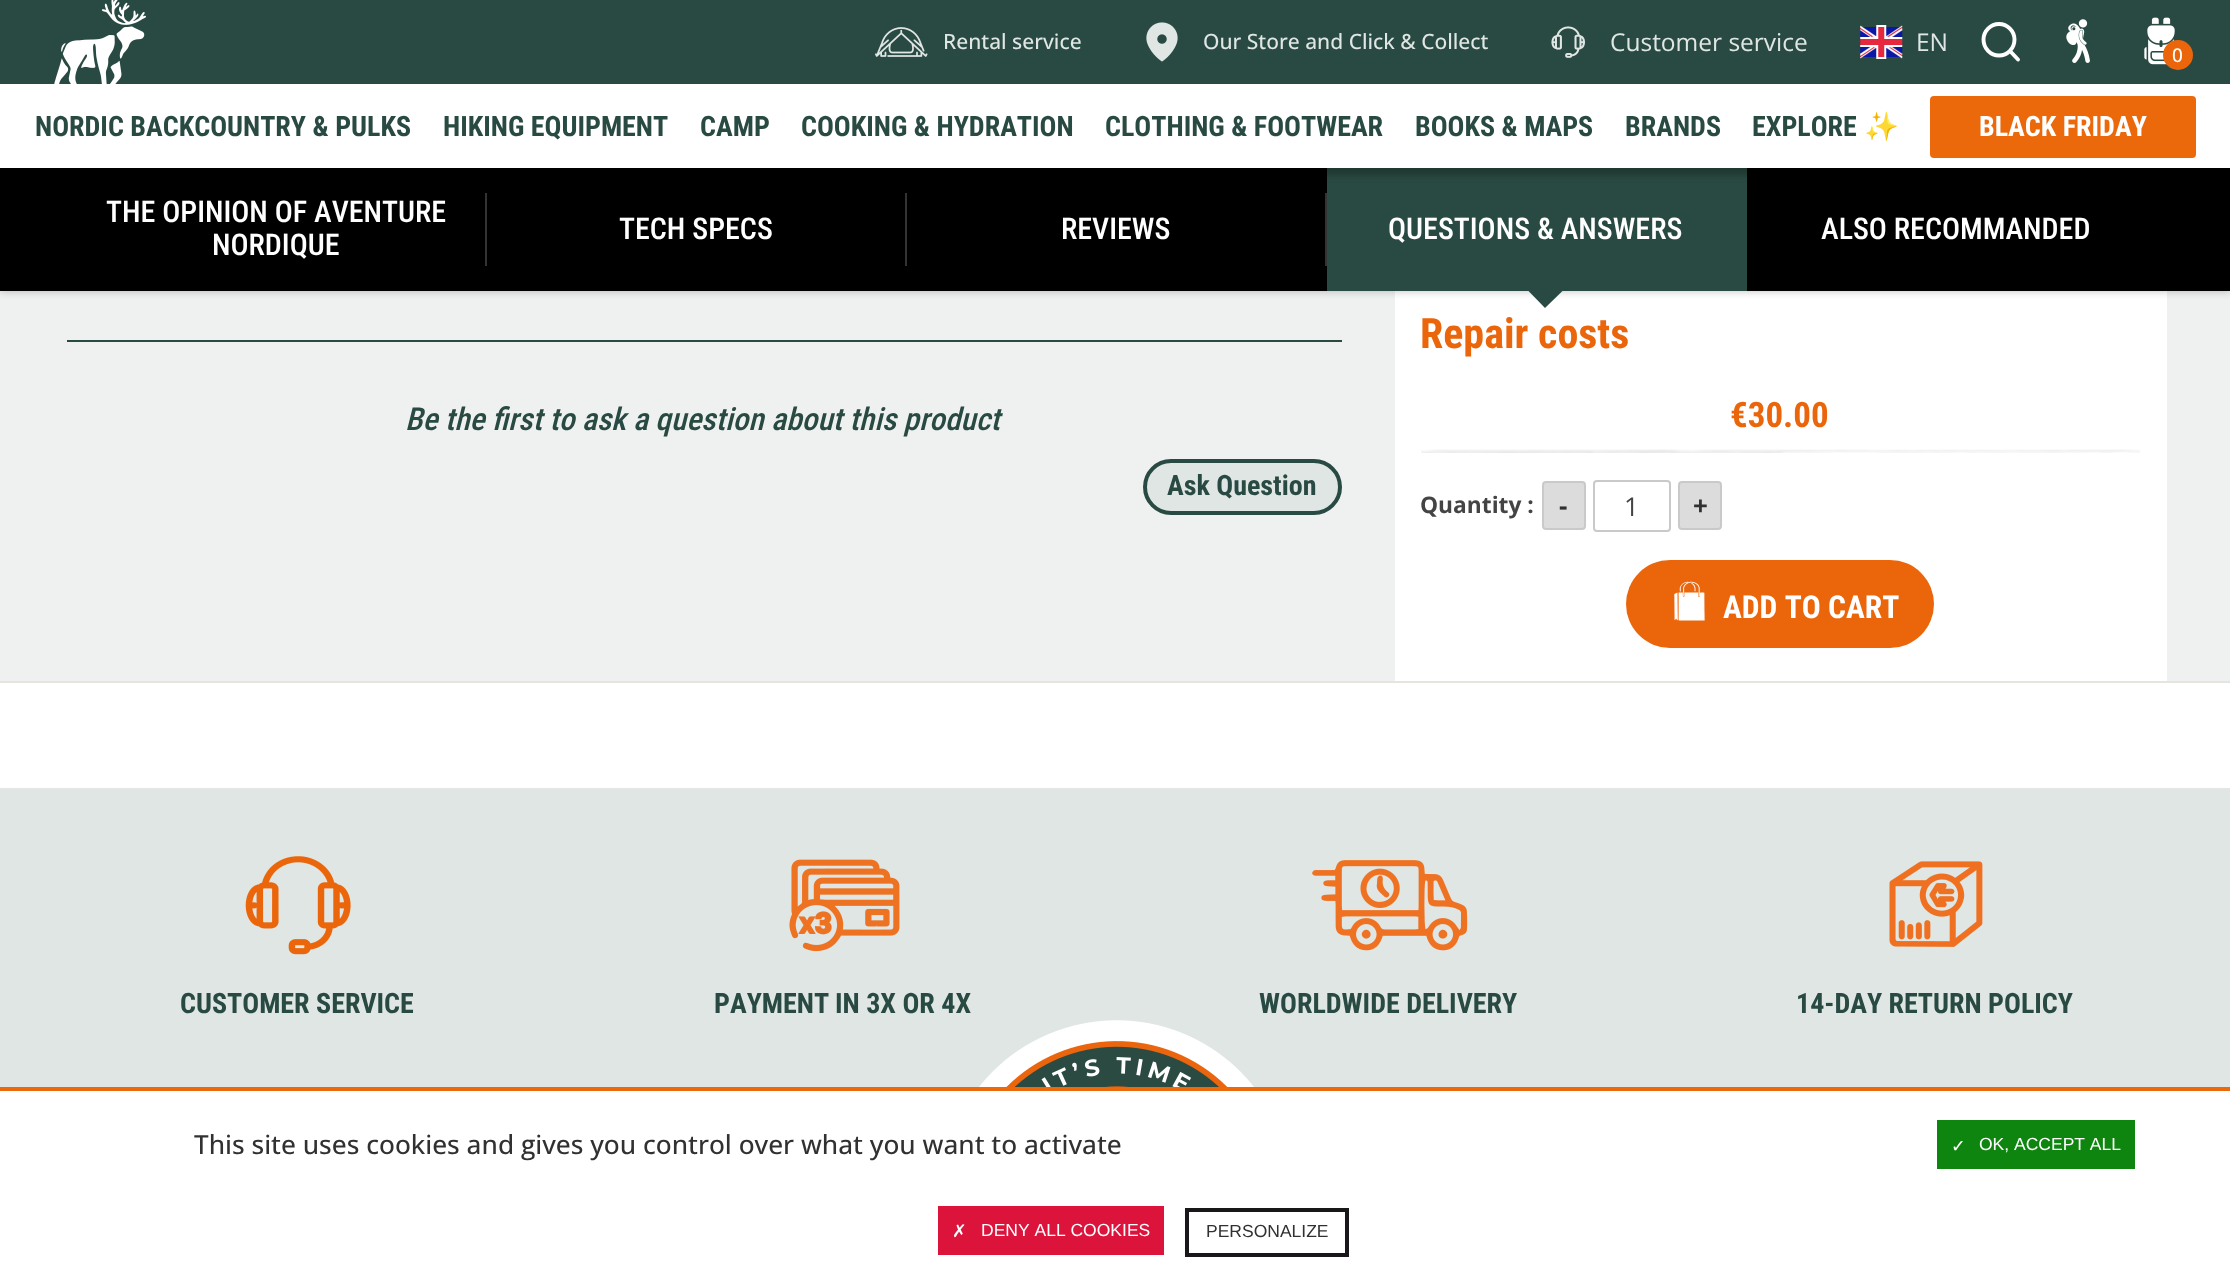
<!DOCTYPE html>
<meta charset="utf-8">
<style>body { margin: 0 } canvas { display: block }</style>
<canvas id="canvas" width="2230" height="1262"></canvas>
<img id="img1" src="img_01.png" hidden>
<img id="img2" src="img_02.png" hidden>
<img id="img3" src="img_03.png" hidden>
<img id="img4" src="img_04.png" hidden>
<img id="img5" src="img_05.png" hidden>
<img id="img6" src="img_06.png" hidden>
<img id="img7" src="img_07.png" hidden>
<img id="img8" src="img_08.png" hidden>
<img id="img9" src="img_09.png" hidden>
<img id="img10" src="img_10.png" hidden>
<img id="img11" src="img_11.png" hidden>
<img id="img12" src="img_12.png" hidden>
<img id="img13" src="img_13.png" hidden>
<img id="img14" src="img_14.png" hidden>
<script>
window.onload = function () {
	const canvas = document.getElementById("canvas");
	const ctx = canvas.getContext("2d");
	ctx.miterLimit = 4;
	ctx.fontKerning = "none";
	function txt(s, x, y) {
		ctx.fillText(s, x, y);
	}
	function fill(x, y, w, h) {
		ctx.fillRect(x, y, w, h);
	}
	function round(x, y, w, h, r) {
		ctx.beginPath();
		ctx.roundRect(x, y, w, h, r);
		ctx.fill();
	}
	function img(id, x, y, w, h) {
		ctx.drawImage(document.getElementById(id), x, y, w, h);
	}

	ctx.fillStyle = "#EFF1F0";
	fill(0, 0, 2230, 1262);
	ctx.fillStyle = "#FFFFFF";
	fill(1395, 291, 772, 390);
	ctx.fillStyle = "rgba(0, 0, 0, 0.25)";
	ctx.filter = "blur(4.5px)";
	ctx.beginPath();
	ctx.rect(0, 168, 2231, 123);
	ctx.fill();
	ctx.filter = "none";
	ctx.fillStyle = "#000000";
	fill(0, 168, 2230, 123);
	ctx.fillStyle = "#294A42";
	ctx.beginPath();
	ctx.moveTo(1528, 290.5);
	ctx.lineTo(1563, 290.5);
	ctx.lineTo(1545, 308);
	ctx.closePath();
	ctx.fill();
	fill(1327, 168, 420, 123);
	ctx.fillStyle = "rgba(0, 0, 0, 0.25)";
	ctx.filter = "blur(3.5px)";
	ctx.beginPath();
	ctx.rect(0, 7, 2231, 168);
	ctx.fill();
	ctx.filter = "none";
	ctx.fillStyle = "#FFFFFF";
	fill(0, 84, 2230, 84);
	ctx.fillStyle = "#294A42";
	fill(0, 0, 2230, 84);
	img("img1", 875, 27, 53, 30);
	img("img2", 1146, 22, 32, 40);
	img("img3", 1551, 26, 34, 32);
	img("img4", 1860, 25, 43, 34);
	img("img5", 54, 0, 92, 84);
	ctx.beginPath();
	ctx.moveTo(1999, 55.5);
	ctx.bezierCurveTo(2007.5, 55.5, 2014.5, 48.5, 2014.5, 39.5);
	ctx.bezierCurveTo(2014.5, 31, 2007.5, 24, 1999, 24);
	ctx.bezierCurveTo(1990.5, 24, 1983.5, 31, 1983.5, 39.5);
	ctx.bezierCurveTo(1983.5, 48.5, 1990.5, 55.5, 1999, 55.5);
	ctx.closePath();
	ctx.moveTo(2018, 59.5);
	ctx.lineTo(2010, 51);
	ctx.strokeStyle = "#FFFFFF";
	ctx.lineWidth = 3.9;
	ctx.lineCap = "round";
	ctx.lineJoin = "round";
	ctx.stroke();
	img("img6", 2066, 19, 24, 44);
	img("img7", 2144, 17, 31, 48);
	ctx.fillStyle = "#EB660B";
	ctx.beginPath();
	ctx.arc(2178, 55, 15, 0, Math.PI * 2);
	ctx.fill();
	ctx.fillStyle = "#EB690B";
	round(1930, 96, 266, 62, 4);
	ctx.fillStyle = "#333333";
	fill(485, 193, 2, 73);
	fill(905, 193, 2, 73);
	fill(1325, 193, 2, 73);
	ctx.fillStyle = "#294A42";
	fill(67, 340, 1275, 2);
	ctx.fillStyle = "#DFE6E4";
	ctx.beginPath();
	ctx.roundRect(1145, 461, 195, 52, 26);
	ctx.fill();
	ctx.strokeStyle = "#294A42";
	ctx.lineWidth = 4;
	ctx.lineJoin = "miter";
	ctx.stroke();
	ctx.fillStyle = "#FFFFFF";
	fill(0, 683, 2230, 105);
	ctx.fillStyle = "#E6E4DF";
	fill(0, 681, 2230, 2);
	img("img8", 1421, 449, 719, 4);
	ctx.fillStyle = "#DCDCDC";
	ctx.beginPath();
	ctx.roundRect(1543, 482, 42, 47, 3);
	ctx.fill();
	ctx.strokeStyle = "#C9C9C9";
	ctx.lineWidth = 2;
	ctx.stroke();
	ctx.beginPath();
	ctx.roundRect(1594, 481, 76, 50, 3);
	ctx.stroke();
	ctx.beginPath();
	ctx.roundRect(1679, 482, 42, 47, 3);
	ctx.fill();
	ctx.stroke();
	ctx.fillStyle = "#EB660B";
	round(1626, 560, 308, 88, 44);
	img("img9", 1674, 581, 31, 40);
	ctx.fillStyle = "#E5E5E5";
	fill(0, 788, 2230, 1);
	ctx.fillStyle = "#DFE6E4";
	fill(0, 789, 2230, 298);
	img("img10", 245, 856, 106, 99);
	img("img11", 789, 859, 111, 93);
	img("img12", 1312, 860, 156, 91);
	img("img13", 1889, 861, 94, 86);
	img("img14", 979, 1020, 275, 67);
	ctx.fillStyle = "#FFFFFF";
	fill(0, 1091, 2230, 171);
	ctx.fillStyle = "#EB690B";
	fill(0, 1087, 2230, 4);
	ctx.fillStyle = "#0E850E";
	fill(1937, 1120, 198, 49);
	ctx.fillStyle = "#DC143C";
	fill(938, 1206, 226, 49);
	ctx.strokeStyle = "#1A171B";
	ctx.lineWidth = 4;
	ctx.strokeRect(1187, 1210, 160, 45);
	ctx.font = "500 21px Open Sans";
	ctx.fillStyle = "#DFE6E4";
	txt("Rental service", 943, 49);
	txt("Our Store and Click & Collect", 1203, 49);
	ctx.font = "24.5px Open Sans";
	txt("Customer service", 1610, 51);
	txt("EN", 1916, 51);
	ctx.font = "500 19px Open Sans";
	ctx.fillStyle = "#FFFFFF";
	txt("0", 2172, 62);
	ctx.font = "bold 28px Roboto Condensed";
	ctx.fillStyle = "#294A42";
	txt("NORDIC BACKCOUNTRY & PULKS", 35, 136);
	txt("HIKING EQUIPMENT", 443, 136);
	txt("CAMP", 700, 136);
	txt("COOKING & HYDRATION", 801, 136);
	txt("CLOTHING & FOOTWEAR", 1105, 136);
	txt("BOOKS & MAPS", 1415, 136);
	txt("BRANDS", 1625, 136);
	txt("EXPLORE", 1752, 136);
	ctx.font = "bold 28px Noto Color Emoji";
	txt("✨", 1864, 136);
	ctx.font = "bold 28px Roboto Condensed";
	ctx.fillStyle = "#FFFFFF";
	txt("BLACK FRIDAY", 1979, 136);
	ctx.font = "500 30px Roboto Condensed";
	txt("THE OPINION OF AVENTURE", 106, 222);
	txt("NORDIQUE", 212, 255);
	txt("TECH SPECS", 619, 239);
	txt("REVIEWS", 1061, 239);
	txt("QUESTIONS & ANSWERS", 1388, 239);
	txt("ALSO RECOMMANDED", 1821, 239);
	ctx.font = "italic 500 31.5px Roboto Condensed";
	ctx.fillStyle = "#294A42";
	txt("Be the first to ask a question about this product", 405, 430);
	ctx.font = "bold 28px Roboto Condensed";
	txt("Ask Question", 1167, 495);
	ctx.font = "bold 42px Roboto Condensed";
	ctx.fillStyle = "#EB660B";
	txt("Repair costs", 1420, 348);
	ctx.font = "bold 35px Roboto Condensed";
	txt("€30.00", 1730, 427);
	ctx.font = "bold 22.75px Open Sans";
	ctx.fillStyle = "#444444";
	txt("Quantity :", 1420, 513);
	ctx.font = "bold 26px Open Sans";
	ctx.fillStyle = "#313131";
	txt("-", 1559, 515);
	ctx.font = "26px Open Sans";
	ctx.fillStyle = "#444444";
	txt("1", 1624, 516);
	ctx.font = "bold 26px Open Sans";
	ctx.fillStyle = "#313131";
	txt("+", 1693, 515);
	ctx.font = "bold 31.5px Roboto Condensed";
	ctx.fillStyle = "#FFFFFF";
	txt("ADD TO CART", 1723, 618);
	ctx.font = "bold 28px Roboto Condensed";
	ctx.fillStyle = "#294A42";
	txt("CUSTOMER SERVICE", 180, 1013);
	txt("PAYMENT", 714, 1013);
	txt("IN 3X OR 4X", 835, 1013);
	txt("WORLDWIDE DELIVERY", 1259, 1013);
	txt("14-DAY RETURN POLICY", 1796, 1013);
	ctx.font = "500 26.25px Open Sans";
	ctx.fillStyle = "#313131";
	txt("This site uses cookies and gives you control over what you want to activate", 194, 1154);
	ctx.font = "17.5px DejaVu Sans";
	ctx.fillStyle = "#FFFFFF";
	txt("✓", 1951, 1152);
	ctx.font = "17.5px Liberation Sans";
	txt("OK, ACCEPT ALL", 1979, 1150);
	ctx.font = "17.5px DejaVu Sans";
	txt("✗", 952, 1237);
	ctx.font = "17.5px Liberation Sans";
	txt("DENY ALL COOKIES", 981, 1236);
	ctx.fillStyle = "#313131";
	txt("PERSONALIZE", 1206, 1237);
};
</script>
